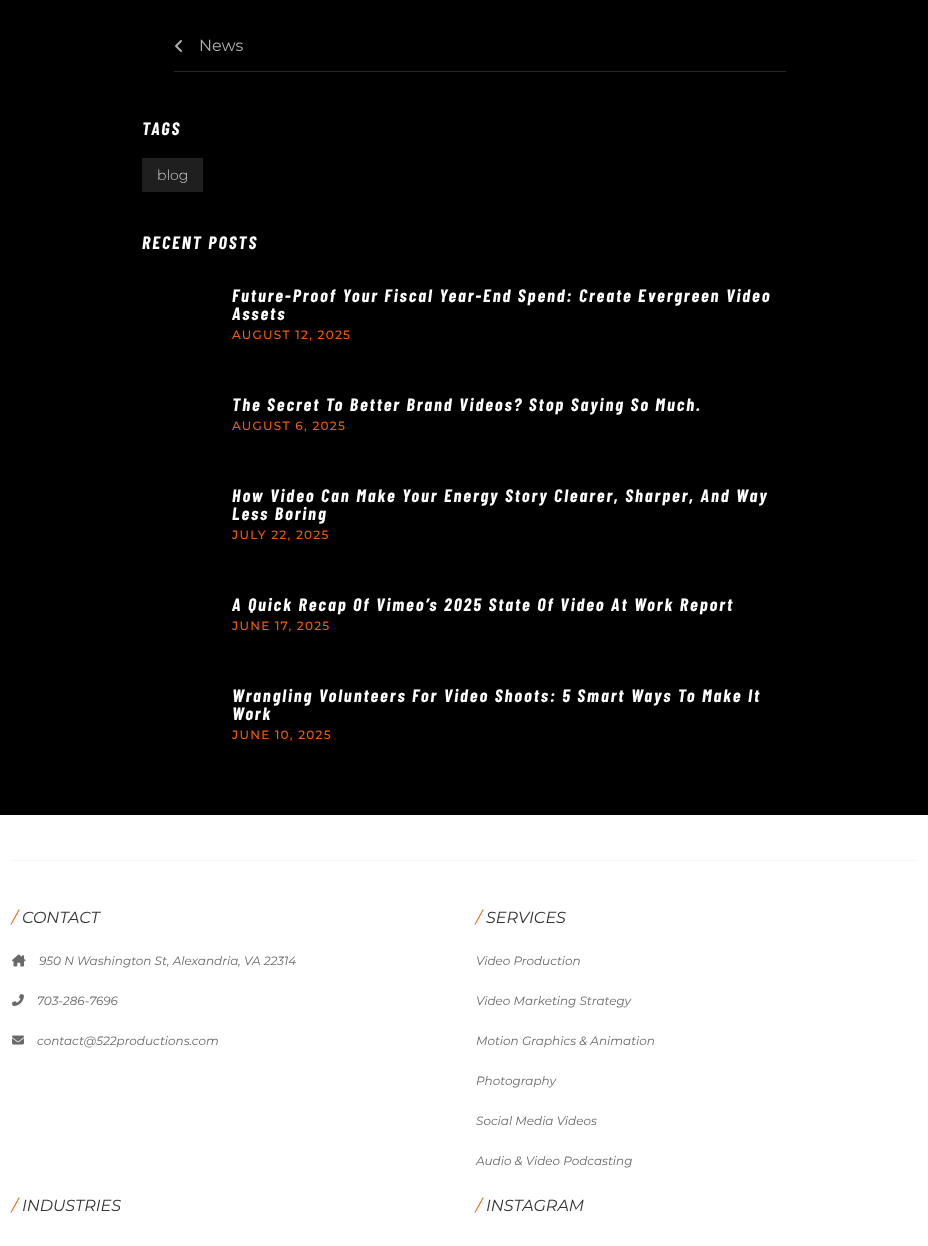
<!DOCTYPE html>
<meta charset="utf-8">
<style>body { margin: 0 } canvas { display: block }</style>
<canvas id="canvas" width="928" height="1246"></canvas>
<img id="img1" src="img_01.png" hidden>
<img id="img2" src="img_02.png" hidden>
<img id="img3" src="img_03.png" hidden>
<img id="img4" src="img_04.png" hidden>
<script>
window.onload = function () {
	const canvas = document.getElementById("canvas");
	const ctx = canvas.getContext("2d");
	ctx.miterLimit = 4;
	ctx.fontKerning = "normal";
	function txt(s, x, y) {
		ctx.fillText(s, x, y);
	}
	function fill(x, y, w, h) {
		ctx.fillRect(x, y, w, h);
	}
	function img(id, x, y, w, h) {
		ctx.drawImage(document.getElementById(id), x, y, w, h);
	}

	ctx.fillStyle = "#FFFFFF";
	fill(0, 0, 928, 1246);
	ctx.fillStyle = "#000000";
	fill(0, 0, 928, 815);
	ctx.fillStyle = "#252525";
	fill(174, 71, 612, 1);
	img("img1", 175, 40, 7, 12);
	ctx.fillStyle = "#1F1F1F";
	fill(142, 158, 61, 34);
	ctx.fillStyle = "#F9F6F1";
	fill(12, 860, 904, 1);
	img("img2", 12, 954, 14, 13);
	img("img3", 12, 994, 12, 12);
	img("img4", 12, 1035, 12, 10);
	ctx.font = "16px Montserrat";
	ctx.fillStyle = "#B1B0B0";
	txt("News", 199, 51);
	ctx.letterSpacing = "2px";
	ctx.font = "italic bold 18px Barlow Condensed";
	ctx.fillStyle = "#FFFFFF";
	txt("TAGS", 142, 135);
	ctx.letterSpacing = "0px";
	ctx.font = "300 14px Montserrat";
	ctx.fillStyle = "#D1D1D1";
	txt("blog", 157, 180);
	ctx.letterSpacing = "2px";
	ctx.font = "italic bold 18px Barlow Condensed";
	ctx.fillStyle = "#FFFFFF";
	txt("RECENT POSTS", 142, 249);
	txt("Future-Proof Your Fiscal Year-End Spend: Create Evergreen Video", 232, 302);
	txt("Assets", 232, 320);
	ctx.letterSpacing = "1.25px";
	ctx.font = "500 12px Montserrat";
	ctx.fillStyle = "#F35B04";
	txt("AUGUST 12, 2025", 232, 339);
	ctx.letterSpacing = "2px";
	ctx.font = "italic bold 18px Barlow Condensed";
	ctx.fillStyle = "#FFFFFF";
	txt("The Secret To Better Brand Videos? Stop Saying So Much.", 232, 411);
	ctx.letterSpacing = "1.25px";
	ctx.font = "500 12px Montserrat";
	ctx.fillStyle = "#F35B04";
	txt("AUGUST 6, 2025", 232, 430);
	ctx.letterSpacing = "2px";
	ctx.font = "italic bold 18px Barlow Condensed";
	ctx.fillStyle = "#FFFFFF";
	txt("How Video Can Make Your Energy Story Clearer, Sharper, And Way", 232, 502);
	txt("Less Boring", 232, 520);
	ctx.letterSpacing = "1.25px";
	ctx.font = "500 12px Montserrat";
	ctx.fillStyle = "#F35B04";
	txt("JULY 22, 2025", 232, 539);
	ctx.letterSpacing = "2px";
	ctx.font = "italic bold 18px Barlow Condensed";
	ctx.fillStyle = "#FFFFFF";
	txt("A Quick Recap Of Vimeo’s 2025 State Of Video At Work Report", 232, 611);
	ctx.letterSpacing = "1.25px";
	ctx.font = "500 12px Montserrat";
	ctx.fillStyle = "#F35B04";
	txt("JUNE 17, 2025", 232, 630);
	ctx.letterSpacing = "2px";
	ctx.font = "italic bold 18px Barlow Condensed";
	ctx.fillStyle = "#FFFFFF";
	txt("Wrangling Volunteers For Video Shoots: 5 Smart Ways To Make It", 232, 702);
	txt("Work", 232, 720);
	ctx.letterSpacing = "1.25px";
	ctx.font = "500 12px Montserrat";
	ctx.fillStyle = "#F35B04";
	txt("JUNE 10, 2025", 232, 739);
	ctx.letterSpacing = "0px";
	ctx.font = "italic 16px Montserrat";
	txt("/", 12, 923);
	ctx.fillStyle = "#333333";
	txt("CONTACT", 22, 923);
	ctx.font = "italic 12px Montserrat";
	ctx.fillStyle = "#696969";
	txt("950 N Washington St, Alexandria, VA 22314", 39, 965);
	txt("703-286-7696", 37, 1005);
	txt("contact@522productions.com", 37, 1045);
	ctx.font = "italic 16px Montserrat";
	ctx.fillStyle = "#F35B04";
	txt("/", 476, 923);
	ctx.fillStyle = "#333333";
	txt("SERVICES", 486, 923);
	ctx.font = "italic 12px Montserrat";
	ctx.fillStyle = "#696969";
	txt("Video Production", 476, 965);
	txt("Video Marketing Strategy", 476, 1005);
	txt("Motion Graphics & Animation", 476, 1045);
	txt("Photography", 476, 1085);
	txt("Social Media Videos", 476, 1125);
	txt("Audio & Video Podcasting", 476, 1165);
	ctx.font = "italic 16px Montserrat";
	ctx.fillStyle = "#F35B04";
	txt("/", 12, 1211);
	ctx.fillStyle = "#333333";
	txt("INDUSTRIES", 22, 1211);
	ctx.fillStyle = "#F35B04";
	txt("/", 476, 1211);
	ctx.fillStyle = "#333333";
	txt("INSTAGRAM", 486, 1211);
};
</script>
